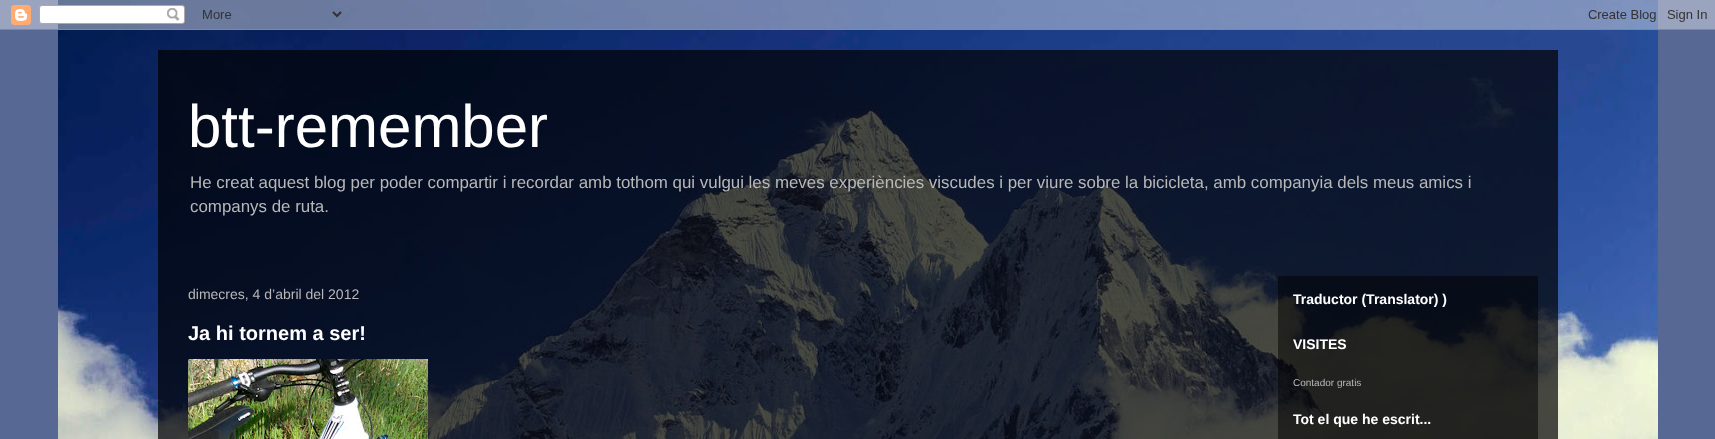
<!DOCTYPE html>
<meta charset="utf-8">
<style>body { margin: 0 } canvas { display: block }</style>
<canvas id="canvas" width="1715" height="439"></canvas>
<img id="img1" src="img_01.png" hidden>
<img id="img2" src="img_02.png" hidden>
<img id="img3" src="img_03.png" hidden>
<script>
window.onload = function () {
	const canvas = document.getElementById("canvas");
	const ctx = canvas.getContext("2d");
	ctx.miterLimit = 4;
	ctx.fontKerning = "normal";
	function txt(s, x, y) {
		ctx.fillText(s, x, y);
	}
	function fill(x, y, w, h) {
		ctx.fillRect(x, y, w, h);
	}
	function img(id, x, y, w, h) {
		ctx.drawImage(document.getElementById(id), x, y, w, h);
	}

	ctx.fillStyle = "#576894";
	fill(0, 0, 1715, 439);
	img("img1", 58, 0, 1600, 439);
	img("img2", 0, 0, 1715, 30);
	ctx.fillStyle = "rgba(0, 0, 0, 0.7)";
	fill(158, 50, 1400, 389);
	ctx.fillStyle = "rgba(0, 0, 0, 0.5)";
	fill(1278, 276, 260, 163);
	img("img3", 188, 359, 240, 80);
	ctx.font = "60px Liberation Sans";
	ctx.fillStyle = "#FFFFFF";
	txt("btt-remember", 188, 147);
	ctx.font = "16.9px Liberation Sans";
	ctx.fillStyle = "#B8B8B8";
	txt("He creat aquest blog per poder compartir i recordar amb tothom qui vulgui les meves experiències viscudes i per viure sobre la bicicleta, amb companyia dels meus amics i", 190, 188);
	txt("companys de ruta.", 190, 212);
	ctx.font = "14px Liberation Sans";
	txt("dimecres, 4 d’abril del 2012", 188, 299);
	ctx.font = "bold 20px Liberation Sans";
	ctx.fillStyle = "#FFFFFF";
	txt("Ja hi tornem a ser!", 188, 340);
	ctx.font = "bold 14px Liberation Sans";
	txt("Traductor (Translator) )", 1293, 304);
	txt("VISITES", 1293, 349);
	ctx.font = "10px Liberation Sans";
	ctx.fillStyle = "#B8B8B8";
	txt("Contador gratis", 1293, 386);
	ctx.font = "bold 14px Liberation Sans";
	ctx.fillStyle = "#FFFFFF";
	txt("Tot el que he escrit...", 1293, 424);
};
</script>
